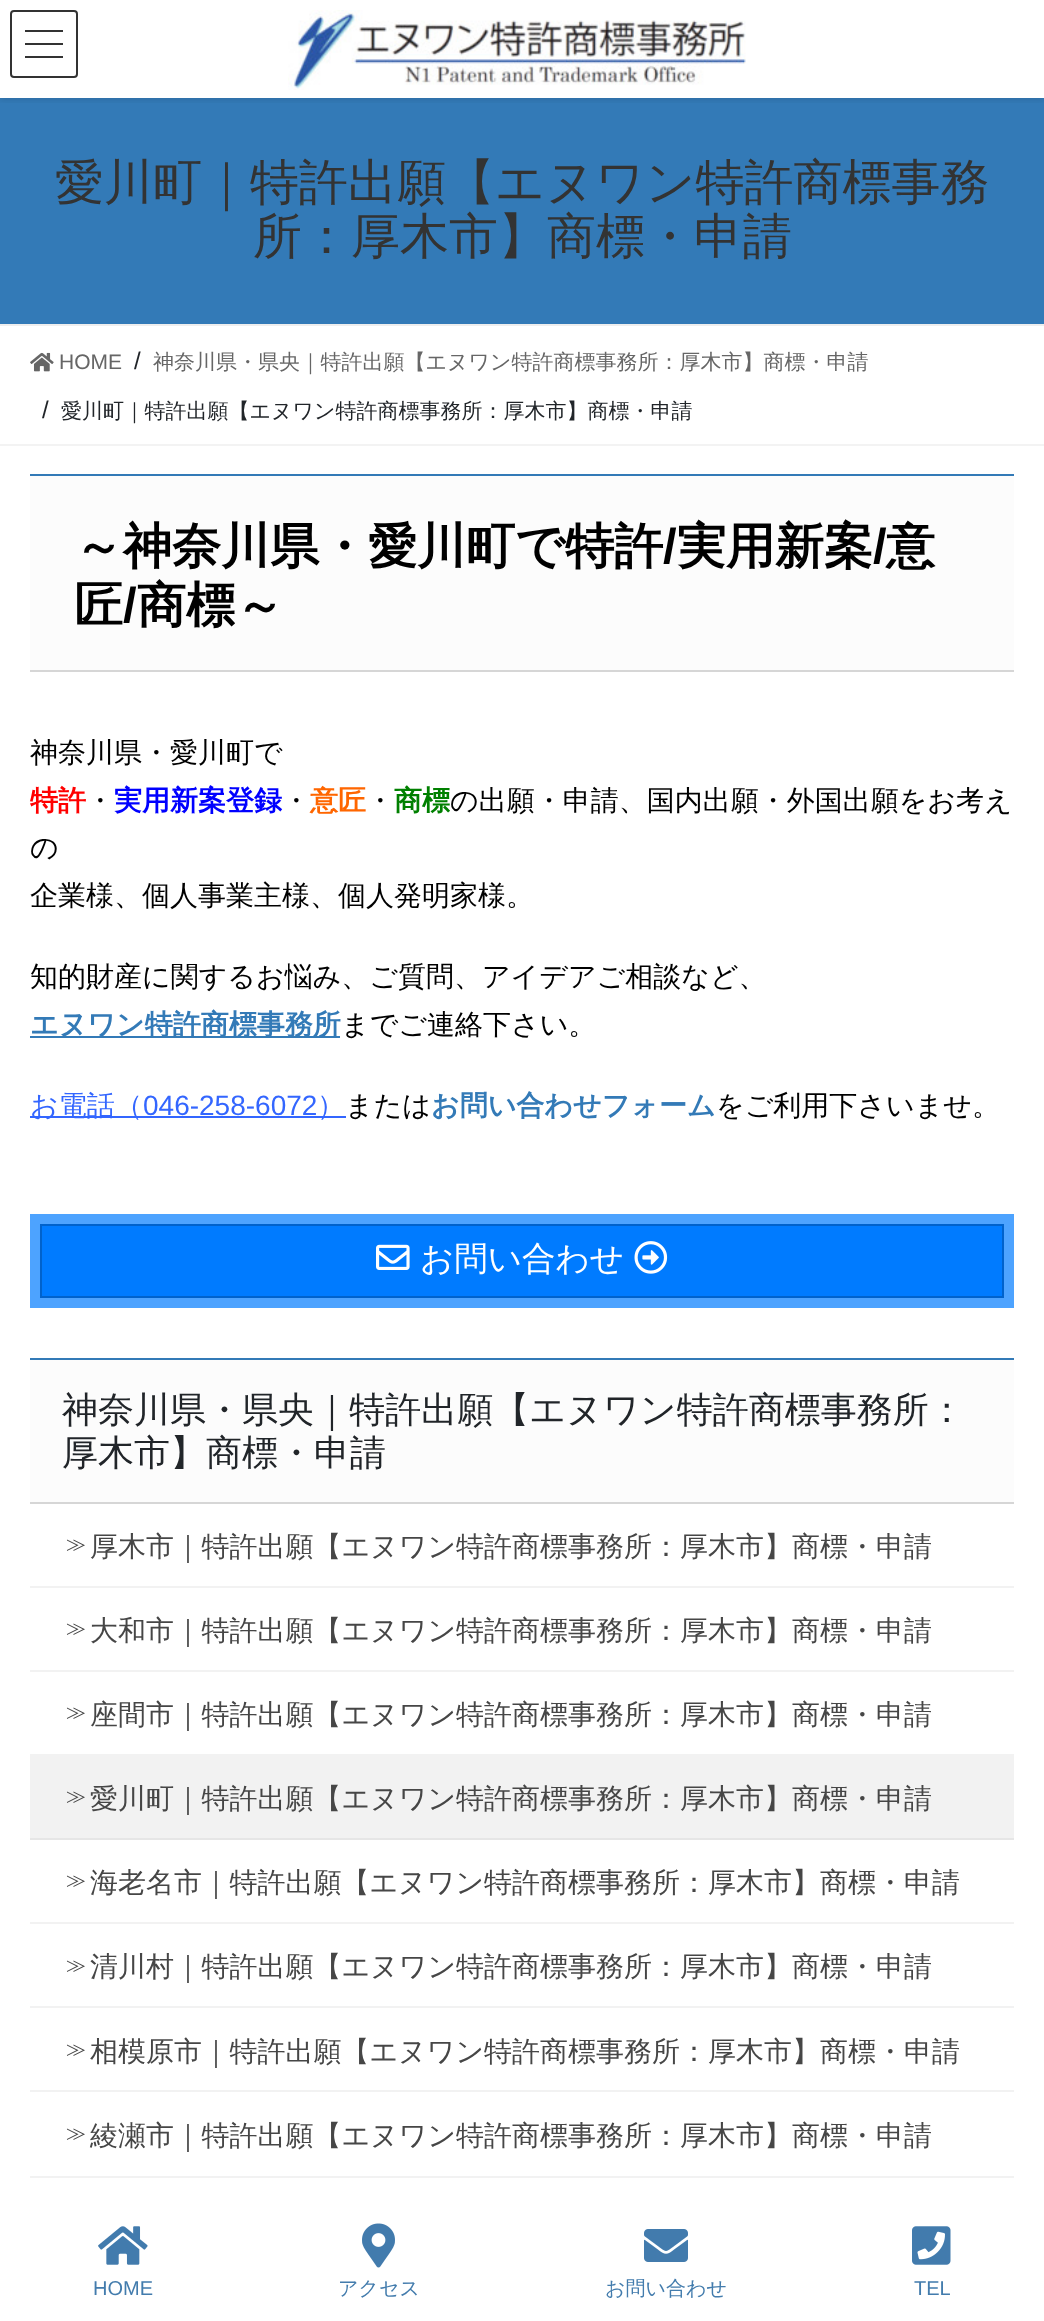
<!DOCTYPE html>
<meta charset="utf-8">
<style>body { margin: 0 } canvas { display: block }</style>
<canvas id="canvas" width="1044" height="2321"></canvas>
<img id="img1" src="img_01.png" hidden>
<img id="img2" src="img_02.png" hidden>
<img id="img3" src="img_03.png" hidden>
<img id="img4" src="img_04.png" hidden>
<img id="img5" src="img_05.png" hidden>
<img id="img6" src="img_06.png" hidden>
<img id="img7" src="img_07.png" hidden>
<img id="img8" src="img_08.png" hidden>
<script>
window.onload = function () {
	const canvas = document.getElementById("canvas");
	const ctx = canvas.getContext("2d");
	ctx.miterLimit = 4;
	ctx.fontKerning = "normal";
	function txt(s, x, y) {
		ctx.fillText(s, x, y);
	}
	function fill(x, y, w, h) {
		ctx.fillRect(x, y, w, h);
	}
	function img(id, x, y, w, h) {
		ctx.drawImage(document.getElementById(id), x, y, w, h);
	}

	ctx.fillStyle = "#FFFFFF";
	fill(0, 0, 1044, 2321);
	ctx.fillStyle = "#337AB7";
	fill(0, 98, 1044, 226);
	ctx.save();
	ctx.beginPath();
	ctx.rect(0, 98, 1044, 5);
	ctx.clip();
	ctx.fillStyle = "rgba(0, 0, 0, 0.1)";
	ctx.filter = "blur(3px)";
	ctx.beginPath();
	ctx.rect(0, 2, 1044, 98);
	ctx.fill();
	ctx.filter = "none";
	ctx.restore();
	img("img1", 288, 10, 458, 80);
	ctx.fillStyle = "#333333";
	fill(25, 30, 38, 2);
	fill(25, 43, 38, 2);
	fill(25, 56, 38, 2);
	ctx.beginPath();
	ctx.roundRect(11, 11, 66, 66, 3);
	ctx.strokeStyle = "#333333";
	ctx.lineWidth = 2;
	ctx.stroke();
	ctx.fillStyle = "#EEEEEE";
	fill(0, 324, 1044, 2);
	ctx.fillStyle = "#F3F3F3";
	fill(0, 444, 1044, 2);
	img("img2", 30, 352, 24, 20);
	ctx.fillStyle = "#FCFCFC";
	fill(30, 476, 984, 194);
	ctx.fillStyle = "#337AB7";
	fill(30, 474, 984, 2);
	ctx.fillStyle = "#D6D6D6";
	fill(30, 670, 984, 2);
	ctx.fillStyle = "#337AB7";
	fill(30, 1036, 310, 2);
	ctx.fillStyle = "#3366FF";
	fill(30, 1116, 316, 2);
	ctx.fillStyle = "#007BFF";
	ctx.beginPath();
	ctx.rect(41, 1225, 962, 72);
	ctx.fill();
	ctx.strokeStyle = "#0062CC";
	ctx.stroke();
	ctx.strokeStyle = "#4DA3FF";
	ctx.lineWidth = 10;
	ctx.strokeRect(35, 1219, 974, 84);
	img("img3", 376, 1244, 34, 26);
	img("img4", 634, 1241, 34, 33);
	ctx.fillStyle = "#FCFCFC";
	fill(30, 1360, 984, 142);
	ctx.fillStyle = "#337AB7";
	fill(30, 1358, 984, 2);
	ctx.fillStyle = "#D6D6D6";
	fill(30, 1502, 984, 2);
	ctx.fillStyle = "#F2F2F2";
	fill(30, 1586, 984, 2);
	fill(30, 1670, 984, 2);
	fill(30, 1754, 984, 84);
	ctx.fillStyle = "#E6E6E6";
	fill(30, 1838, 984, 2);
	ctx.fillStyle = "#F2F2F2";
	fill(30, 1922, 984, 2);
	fill(30, 2006, 984, 2);
	fill(30, 2090, 984, 2);
	fill(30, 2176, 984, 2);
	img("img5", 98, 2226, 50, 39);
	img("img6", 362, 2223, 33, 45);
	img("img7", 644, 2229, 44, 33);
	img("img8", 912, 2226, 39, 39);
	ctx.font = "500 49px WenQuanYi Zen Hei";
	ctx.fillStyle = "#333333";
	txt("愛川町｜特許出願【エヌワン特許商標事務", 55, 199);
	txt("所：厚木市】商標・申請", 253, 253);
	ctx.font = "21px Liberation Sans";
	ctx.fillStyle = "#666666";
	txt("HOME", 59, 369);
	ctx.font = "24px Liberation Sans";
	ctx.fillStyle = "#212529";
	txt("/", 134, 369);
	ctx.font = "500 21px WenQuanYi Zen Hei";
	ctx.fillStyle = "#666666";
	txt("神奈川県・県央｜特許出願【エヌワン特許商標事務所：厚木市】商標・申請", 153, 369);
	ctx.font = "24px Liberation Sans";
	ctx.fillStyle = "#212529";
	txt("/", 42, 418);
	ctx.font = "500 21px WenQuanYi Zen Hei";
	txt("愛川町｜特許出願【エヌワン特許商標事務所：厚木市】商標・申請", 61, 418);
	ctx.font = "bold 49px WenQuanYi Zen Hei";
	ctx.fillStyle = "#000000";
	txt("～神奈川県・愛川町で特許", 74, 563);
	ctx.font = "bold 49px Liberation Sans";
	txt("/", 663, 563);
	ctx.font = "bold 49px WenQuanYi Zen Hei";
	txt("実用新案", 677, 563);
	ctx.font = "bold 49px Liberation Sans";
	txt("/", 873, 563);
	ctx.font = "bold 49px WenQuanYi Zen Hei";
	txt("意", 886, 563);
	txt("匠", 74, 622);
	ctx.font = "bold 49px Liberation Sans";
	txt("/", 123, 622);
	ctx.font = "bold 49px WenQuanYi Zen Hei";
	txt("商標～", 137, 622);
	ctx.font = "500 28px WenQuanYi Zen Hei";
	txt("神奈川県・愛川町で", 30, 762);
	ctx.font = "bold 28px WenQuanYi Zen Hei";
	ctx.fillStyle = "#FF0000";
	txt("特許", 30, 810);
	ctx.font = "500 28px WenQuanYi Zen Hei";
	ctx.fillStyle = "#000000";
	txt("・", 86, 810);
	ctx.font = "bold 28px WenQuanYi Zen Hei";
	ctx.fillStyle = "#0000FF";
	txt("実用新案登録", 114, 810);
	ctx.font = "500 28px WenQuanYi Zen Hei";
	ctx.fillStyle = "#000000";
	txt("・", 282, 810);
	ctx.font = "bold 28px WenQuanYi Zen Hei";
	ctx.fillStyle = "#FF6600";
	txt("意匠", 310, 810);
	ctx.font = "500 28px WenQuanYi Zen Hei";
	ctx.fillStyle = "#000000";
	txt("・", 366, 810);
	ctx.font = "bold 28px WenQuanYi Zen Hei";
	ctx.fillStyle = "#008000";
	txt("商標", 394, 810);
	ctx.font = "500 28px WenQuanYi Zen Hei";
	ctx.fillStyle = "#000000";
	txt("の出願・申請、国内出願・外国出願をお考え", 450, 810);
	txt("の", 30, 857);
	txt("企業様、個人事業主様、個人発明家様。", 30, 905);
	txt("知的財産に関するお悩み、ご質問、アイデアご相談など、", 30, 986);
	ctx.font = "bold 28px WenQuanYi Zen Hei";
	ctx.fillStyle = "#337AB7";
	txt("エヌワン特許商標事務所", 30, 1034);
	ctx.font = "500 28px WenQuanYi Zen Hei";
	ctx.fillStyle = "#000000";
	txt("までご連絡下さい。", 341, 1034);
	ctx.fillStyle = "#3366FF";
	txt("お電話（", 30, 1115);
	ctx.font = "28px Liberation Sans";
	txt("046-258-6072", 143, 1115);
	ctx.font = "500 28px WenQuanYi Zen Hei";
	txt("）", 317, 1115);
	ctx.fillStyle = "#000000";
	txt("または", 345, 1115);
	ctx.font = "bold 28px WenQuanYi Zen Hei";
	ctx.fillStyle = "#337AB7";
	txt("お問い合わせフォーム", 431, 1115);
	ctx.font = "500 28px WenQuanYi Zen Hei";
	ctx.fillStyle = "#000000";
	txt("をご利用下さいませ。", 716, 1115);
	ctx.font = "500 33.5px WenQuanYi Zen Hei";
	ctx.fillStyle = "#FFFFFF";
	txt("お問い合わせ", 420, 1270);
	ctx.font = "500 36px WenQuanYi Zen Hei";
	ctx.fillStyle = "#212529";
	txt("神奈川県・県央｜特許出願【エヌワン特許商標事務所：", 62, 1422);
	txt("厚木市】商標・申請", 62, 1465);
	ctx.font = "500 20px WenQuanYi Zen Hei";
	ctx.fillStyle = "#464646";
	txt("≫", 66, 1551);
	ctx.font = "500 28px WenQuanYi Zen Hei";
	txt("厚木市｜特許出願【エヌワン特許商標事務所：厚木市】商標・申請", 90, 1556);
	ctx.font = "500 20px WenQuanYi Zen Hei";
	txt("≫", 66, 1635);
	ctx.font = "500 28px WenQuanYi Zen Hei";
	txt("大和市｜特許出願【エヌワン特許商標事務所：厚木市】商標・申請", 90, 1640);
	ctx.font = "500 20px WenQuanYi Zen Hei";
	txt("≫", 66, 1719);
	ctx.font = "500 28px WenQuanYi Zen Hei";
	txt("座間市｜特許出願【エヌワン特許商標事務所：厚木市】商標・申請", 90, 1724);
	ctx.font = "500 20px WenQuanYi Zen Hei";
	txt("≫", 66, 1803);
	ctx.font = "500 28px WenQuanYi Zen Hei";
	txt("愛川町｜特許出願【エヌワン特許商標事務所：厚木市】商標・申請", 90, 1808);
	ctx.font = "500 20px WenQuanYi Zen Hei";
	txt("≫", 66, 1887);
	ctx.font = "500 28px WenQuanYi Zen Hei";
	txt("海老名市｜特許出願【エヌワン特許商標事務所：厚木市】商標・申請", 90, 1892);
	ctx.font = "500 20px WenQuanYi Zen Hei";
	txt("≫", 66, 1972);
	ctx.font = "500 28px WenQuanYi Zen Hei";
	txt("清川村｜特許出願【エヌワン特許商標事務所：厚木市】商標・申請", 90, 1976);
	ctx.font = "500 20px WenQuanYi Zen Hei";
	txt("≫", 66, 2056);
	ctx.font = "500 28px WenQuanYi Zen Hei";
	txt("相模原市｜特許出願【エヌワン特許商標事務所：厚木市】商標・申請", 90, 2061);
	ctx.font = "500 20px WenQuanYi Zen Hei";
	txt("≫", 66, 2140);
	ctx.font = "500 28px WenQuanYi Zen Hei";
	txt("綾瀬市｜特許出願【エヌワン特許商標事務所：厚木市】商標・申請", 90, 2145);
	ctx.font = "20px Liberation Sans";
	ctx.fillStyle = "#437CAD";
	txt("HOME", 93, 2295);
	ctx.font = "500 20px WenQuanYi Zen Hei";
	txt("アクセス", 338, 2295);
	txt("お問い合わせ", 605, 2295);
	ctx.font = "20px Liberation Sans";
	txt("TEL", 914, 2295);
};
</script>
